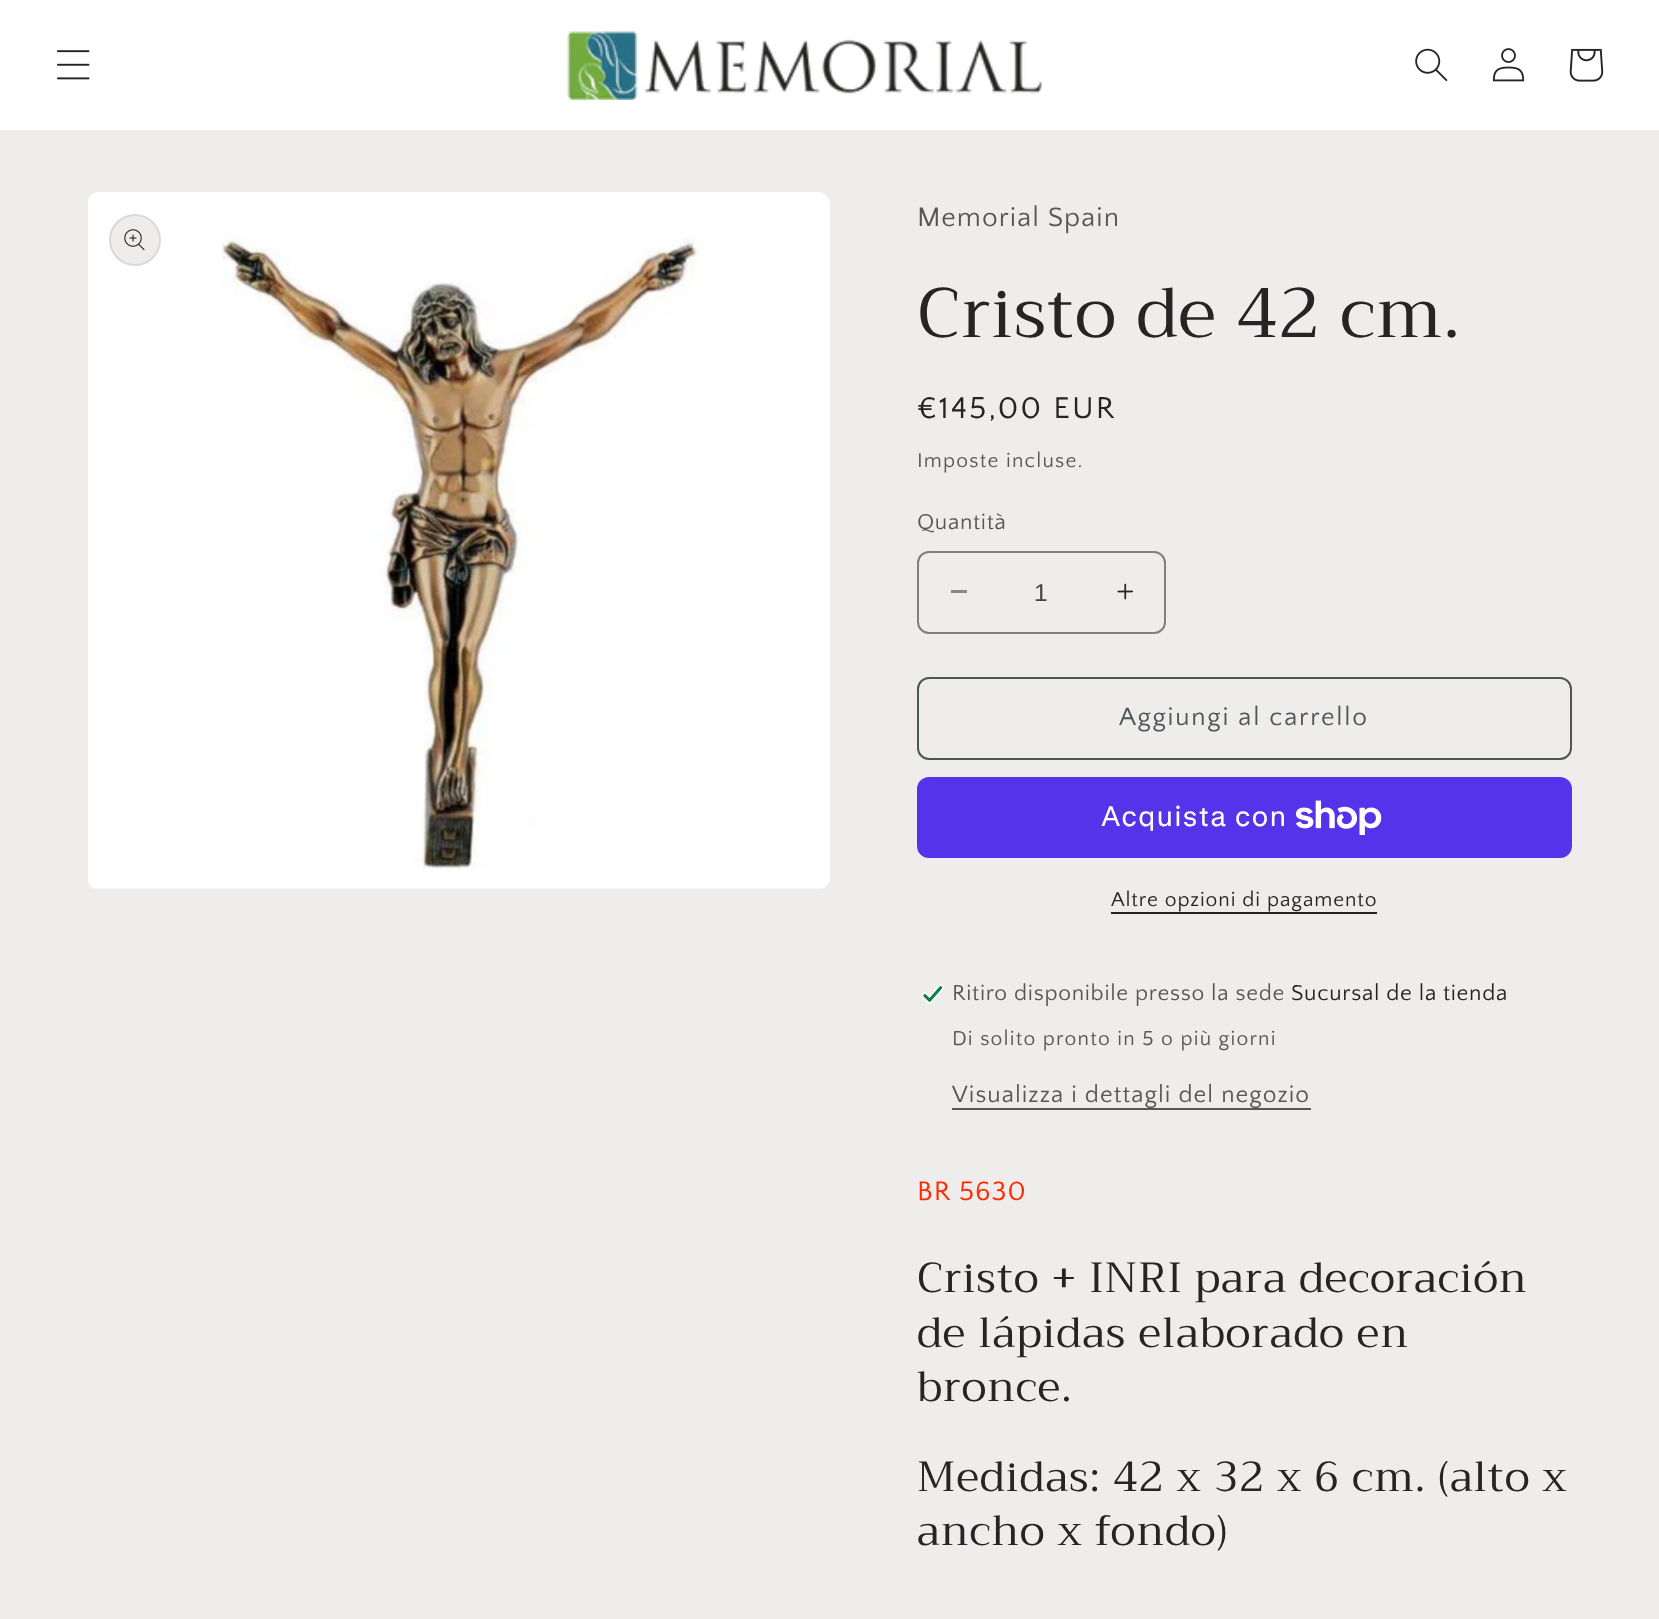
<!DOCTYPE html>
<meta charset="utf-8">
<style>body { margin: 0 } canvas { display: block }</style>
<canvas id="canvas" width="1659" height="1619"></canvas>
<img id="img1" src="img_01.png" hidden>
<img id="img2" src="img_02.png" hidden>
<img id="img3" src="img_03.png" hidden>
<img id="img4" src="img_04.png" hidden>
<img id="img5" src="img_05.png" hidden>
<img id="img6" src="img_06.png" hidden>
<img id="img7" src="img_07.png" hidden>
<img id="img8" src="img_08.png" hidden>
<img id="img9" src="img_09.png" hidden>
<img id="img10" src="img_10.png" hidden>
<script>
window.onload = function () {
	const canvas = document.getElementById("canvas");
	const ctx = canvas.getContext("2d");
	ctx.miterLimit = 4;
	ctx.fontKerning = "normal";
	function txt(s, x, y) {
		ctx.fillText(s, x, y);
	}
	function fill(x, y, w, h) {
		ctx.fillRect(x, y, w, h);
	}
	function round(x, y, w, h, r) {
		ctx.beginPath();
		ctx.roundRect(x, y, w, h, r);
		ctx.fill();
	}
	function img(id, x, y, w, h) {
		ctx.drawImage(document.getElementById(id), x, y, w, h);
	}

	ctx.fillStyle = "#EFECEC";
	fill(0, 0, 1659, 1619);
	ctx.fillStyle = "#FFFFFF";
	fill(0, 0, 1659, 130);
	img("img1", 57, 50, 33, 30);
	img("img2", 567, 31, 476, 69);
	img("img3", 1415, 48, 33, 34);
	img("img4", 1492, 48, 33, 34);
	img("img5", 1569, 48, 35, 34);
	img("img6", 88, 192, 742, 697);
	ctx.fillStyle = "#EFECEC";
	ctx.beginPath();
	ctx.arc(135, 240, 26, 0, Math.PI * 2);
	ctx.fill();
	ctx.beginPath();
	ctx.arc(135, 240, 25, 0, Math.PI * 2);
	ctx.strokeStyle = "rgba(37, 37, 37, 0.1)";
	ctx.lineWidth = 2;
	ctx.stroke();
	img("img7", 124, 229, 21, 22);
	ctx.fillStyle = "#8A8989";
	fill(951, 590, 16, 3);
	img("img8", 1117, 583, 17, 17);
	ctx.beginPath();
	ctx.roundRect(918, 552, 247, 81, 11);
	ctx.strokeStyle = "#807F7F";
	ctx.stroke();
	ctx.beginPath();
	ctx.roundRect(918, 678, 653, 81, 11);
	ctx.strokeStyle = "#505655";
	ctx.stroke();
	ctx.fillStyle = "#5433EB";
	round(917, 777, 655, 81, 12);
	img("img9", 1296, 800, 86, 35);
	ctx.fillStyle = "#252525";
	fill(1111, 912, 266, 2);
	img("img10", 921, 984, 23, 20);
	ctx.fillStyle = "#585757";
	fill(952, 1108, 359, 2);
	ctx.letterSpacing = "1.05px";
	ctx.font = "28px Quattrocento Sans";
	txt("Memorial Spain", 917, 226);
	ctx.font = "70px Trirong";
	ctx.fillStyle = "#252525";
	txt("Cristo de 42 cm.", 917, 337);
	ctx.letterSpacing = "2.25px";
	ctx.font = "31.5px Quattrocento Sans";
	txt("€145,00 EUR", 917, 418);
	ctx.letterSpacing = "1.2px";
	ctx.font = "21px Quattrocento Sans";
	ctx.fillStyle = "#585757";
	txt("Imposte incluse.", 917, 467);
	ctx.letterSpacing = "0.7px";
	ctx.font = "22.75px Quattrocento Sans";
	txt("Quantità", 917, 529);
	ctx.letterSpacing = "0px";
	ctx.font = "24.5px Liberation Sans";
	ctx.fillStyle = "#434343";
	txt("1", 1034, 601);
	ctx.letterSpacing = "1.75px";
	ctx.font = "26.25px Quattrocento Sans";
	ctx.fillStyle = "#505655";
	txt("Aggiungi al carrello", 1119, 725);
	ctx.letterSpacing = "1.05px";
	ctx.font = "28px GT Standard";
	ctx.fillStyle = "#FFFFFF";
	txt("Acquista con", 1101, 826);
	ctx.letterSpacing = "0.9px";
	ctx.font = "21px Quattrocento Sans";
	ctx.fillStyle = "#252525";
	txt("Altre opzioni di pagamento", 1111, 906);
	ctx.letterSpacing = "0.7px";
	ctx.font = "22.75px Quattrocento Sans";
	ctx.fillStyle = "#585757";
	txt("Ritiro disponibile presso la sede", 952, 1000);
	ctx.fillStyle = "#252525";
	txt("Sucursal de la tienda", 1291, 1000);
	ctx.letterSpacing = "1.2px";
	ctx.font = "21px Quattrocento Sans";
	ctx.fillStyle = "#585757";
	txt("Di solito pronto in 5 o più giorni", 952, 1045);
	ctx.letterSpacing = "1.05px";
	ctx.font = "24.5px Quattrocento Sans";
	txt("Visualizza i dettagli del negozio", 952, 1102);
	ctx.font = "28px Quattrocento Sans";
	ctx.fillStyle = "#FF2A00";
	txt("BR 5630", 917, 1200);
	ctx.font = "42px Trirong";
	ctx.fillStyle = "#252525";
	txt("Cristo + INRI para decoración", 917, 1292);
	txt("de lápidas elaborado en", 917, 1347);
	txt("bronce.", 917, 1401);
	txt("Medidas: 42 x 32 x 6 cm. (alto x", 917, 1491);
	txt("ancho x fondo)", 917, 1545);
};
</script>
